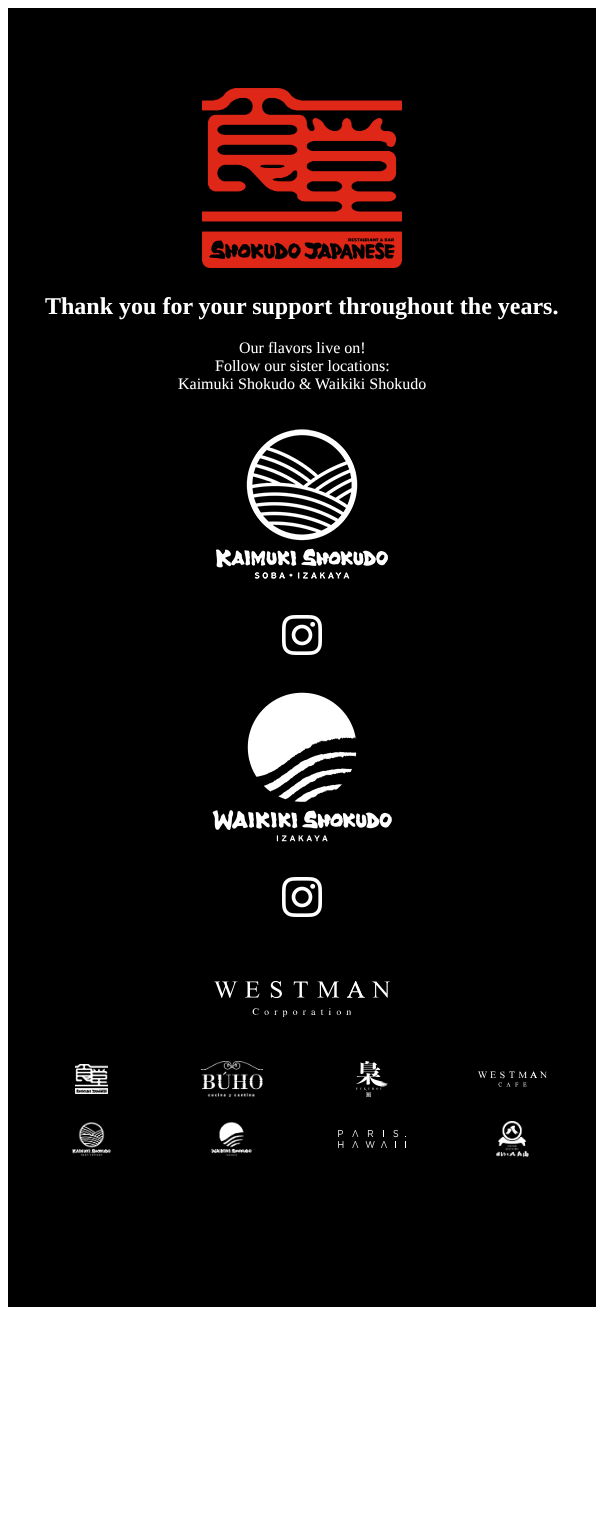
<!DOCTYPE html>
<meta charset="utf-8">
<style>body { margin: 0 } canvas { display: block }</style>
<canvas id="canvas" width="604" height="1514"></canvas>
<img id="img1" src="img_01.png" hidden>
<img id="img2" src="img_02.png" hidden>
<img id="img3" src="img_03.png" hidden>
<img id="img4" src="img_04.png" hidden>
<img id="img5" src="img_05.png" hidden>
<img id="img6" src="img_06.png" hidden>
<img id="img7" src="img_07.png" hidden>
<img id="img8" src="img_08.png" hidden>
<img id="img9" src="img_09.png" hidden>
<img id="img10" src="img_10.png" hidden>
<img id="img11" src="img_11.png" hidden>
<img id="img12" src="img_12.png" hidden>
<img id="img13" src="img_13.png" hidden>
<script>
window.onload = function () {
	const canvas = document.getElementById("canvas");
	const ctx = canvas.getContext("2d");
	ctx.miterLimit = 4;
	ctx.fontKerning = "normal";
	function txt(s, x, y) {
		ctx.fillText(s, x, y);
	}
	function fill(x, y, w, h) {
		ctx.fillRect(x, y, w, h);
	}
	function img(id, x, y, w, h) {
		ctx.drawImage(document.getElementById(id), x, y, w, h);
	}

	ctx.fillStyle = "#FFFFFF";
	fill(0, 0, 604, 1514);
	ctx.fillStyle = "#000000";
	fill(8, 8, 588, 1299);
	img("img1", 202, 88, 200, 180);
	img("img2", 216, 429, 172, 150);
	img("img3", 282, 615, 40, 40);
	img("img4", 212, 692, 180, 150);
	img("img3", 282, 877, 40, 40);
	img("img5", 214, 981, 176, 36);
	img("img6", 75, 1064, 33, 30);
	img("img7", 201, 1061, 62, 36);
	img("img8", 356, 1061, 32, 36);
	img("img9", 478, 1071, 69, 16);
	img("img10", 71, 1122, 41, 35);
	img("img11", 211, 1121, 41, 35);
	img("img12", 338, 1130, 68, 18);
	img("img13", 496, 1121, 33, 36);
	ctx.font = "bold 24px Liberation Serif";
	ctx.fillStyle = "#FFFFFF";
	txt("Thank you for your support throughout the years.", 45, 314);
	ctx.font = "16px Liberation Serif";
	txt("Our flavors live on!", 239, 353);
	txt("Follow our sister locations:", 215, 371);
	txt("Kaimuki Shokudo & Waikiki Shokudo", 178, 389);
};
</script>
